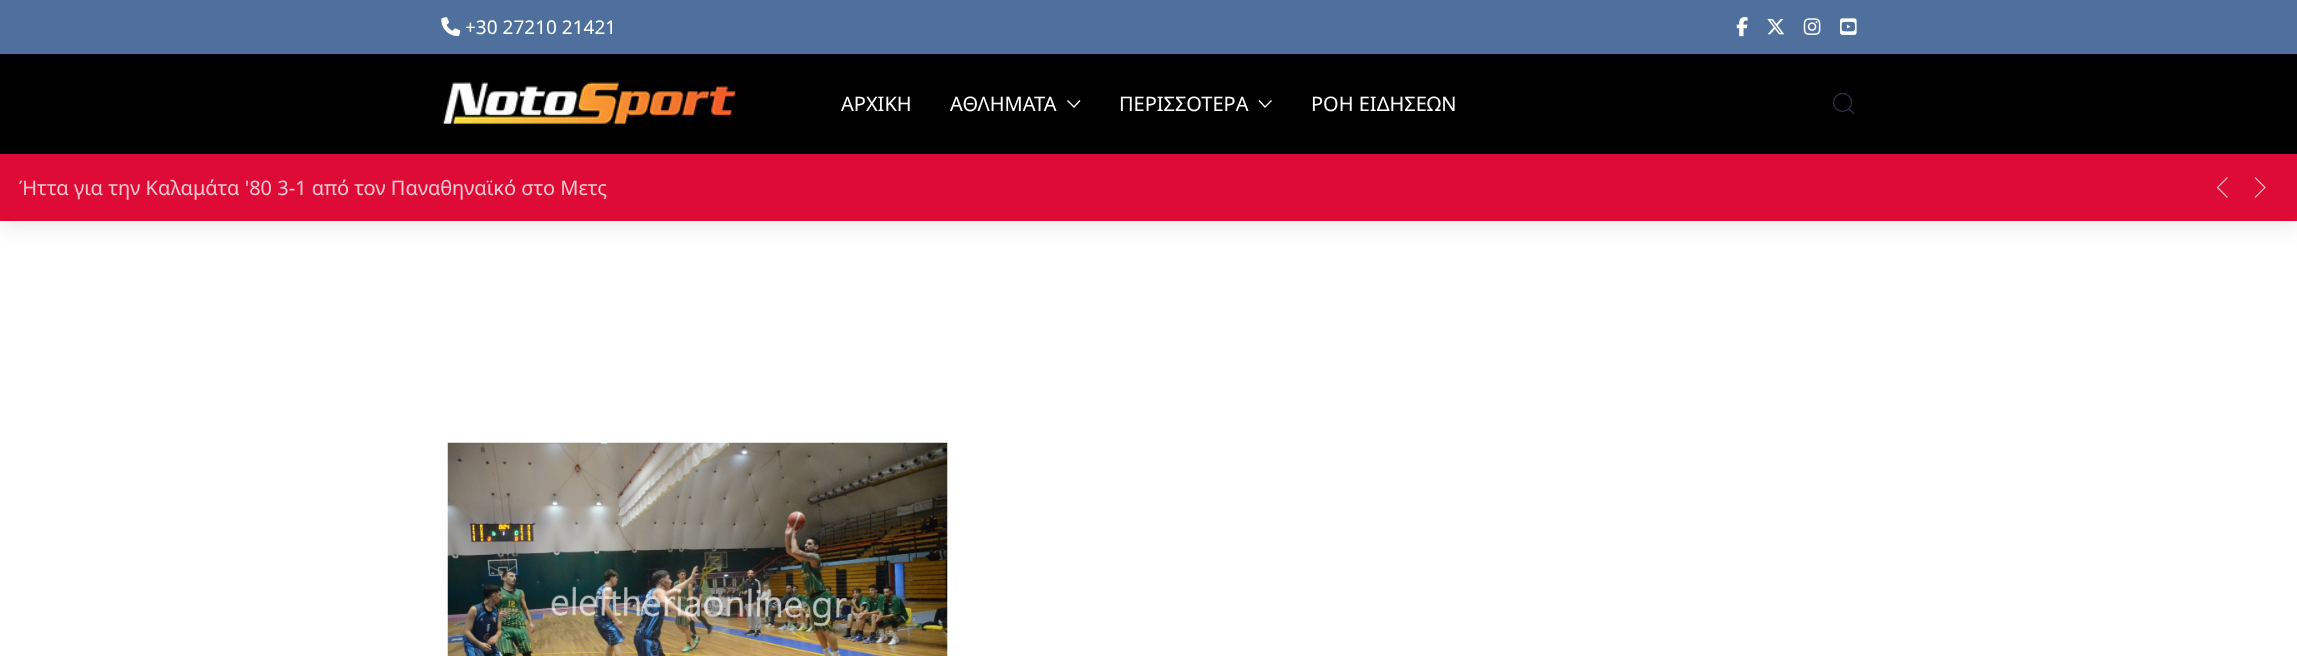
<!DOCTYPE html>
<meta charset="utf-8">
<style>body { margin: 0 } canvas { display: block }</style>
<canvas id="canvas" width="2297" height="656"></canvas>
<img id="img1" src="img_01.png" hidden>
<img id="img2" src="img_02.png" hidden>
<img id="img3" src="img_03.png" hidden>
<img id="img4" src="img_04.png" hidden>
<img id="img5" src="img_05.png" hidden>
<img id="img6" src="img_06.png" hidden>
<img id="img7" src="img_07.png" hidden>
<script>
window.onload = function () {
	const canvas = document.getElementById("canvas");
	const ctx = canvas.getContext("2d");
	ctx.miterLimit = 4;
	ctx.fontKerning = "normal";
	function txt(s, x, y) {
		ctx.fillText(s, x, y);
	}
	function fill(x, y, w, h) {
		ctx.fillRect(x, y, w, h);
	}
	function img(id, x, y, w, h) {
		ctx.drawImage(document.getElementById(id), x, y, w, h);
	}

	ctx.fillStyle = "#FFFFFF";
	fill(0, 0, 2297, 656);
	ctx.fillStyle = "#4F709C";
	fill(0, 0, 2297, 54);
	img("img1", 441, 17, 20, 20);
	img("img2", 1736, 17, 12, 20);
	img("img3", 1767, 18, 18, 17);
	img("img4", 1803, 18, 18, 17);
	img("img5", 1840, 18, 17, 17);
	ctx.fillStyle = "#000000";
	fill(0, 54, 2297, 100);
	img("img6", 442, 80, 295, 47);
	ctx.beginPath();
	ctx.moveTo(1067.5, 100.5);
	ctx.lineTo(1074, 107);
	ctx.lineTo(1080, 100.5);
	ctx.strokeStyle = "#FFFFFF";
	ctx.lineWidth = 1.4;
	ctx.stroke();
	ctx.beginPath();
	ctx.moveTo(1259, 100.5);
	ctx.lineTo(1265, 107);
	ctx.lineTo(1271.5, 100.5);
	ctx.stroke();
	ctx.beginPath();
	ctx.arc(1842.5, 102.5, 9, 0, Math.PI * 2);
	ctx.strokeStyle = "#2B2D42";
	ctx.stroke();
	ctx.beginPath();
	ctx.moveTo(1849, 109);
	ctx.lineTo(1854, 114);
	ctx.closePath();
	ctx.stroke();
	ctx.fillStyle = "rgba(0, 0, 0, 0.08)";
	ctx.filter = "blur(9.5px)";
	ctx.beginPath();
	ctx.rect(0, 160, 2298, 68);
	ctx.fill();
	ctx.filter = "none";
	ctx.fillStyle = "#DD0B35";
	fill(0, 154, 2297, 67);
	ctx.beginPath();
	ctx.moveTo(2227.5, 177.5);
	ctx.lineTo(2217.5, 187.5);
	ctx.lineTo(2227.5, 197.5);
	ctx.moveTo(2255, 197.5);
	ctx.lineTo(2265, 187.5);
	ctx.lineTo(2255, 177.5);
	ctx.strokeStyle = "#F5B6C2";
	ctx.lineWidth = 1.2;
	ctx.stroke();
	img("img7", 447, 442, 501, 214);
	ctx.font = "19px Noto Sans";
	ctx.fillStyle = "#FFFFFF";
	txt("+30 27210 21421", 465, 34);
	ctx.font = "20px Noto Sans";
	txt("ΑΡΧΙΚΗ", 841, 111);
	txt("ΑΘΛΗΜΑΤΑ", 950, 111);
	txt("ΠΕΡΙΣΣΟΤΕΡΑ", 1119, 111);
	txt("ΡΟΗ ΕΙΔΗΣΕΩΝ", 1311, 111);
	ctx.fillStyle = "#F7C7D1";
	txt("Ήττα για την Καλαμάτα '80 3-1 από τον Παναθηναϊκό στο Μετς", 19, 195);
};
</script>
